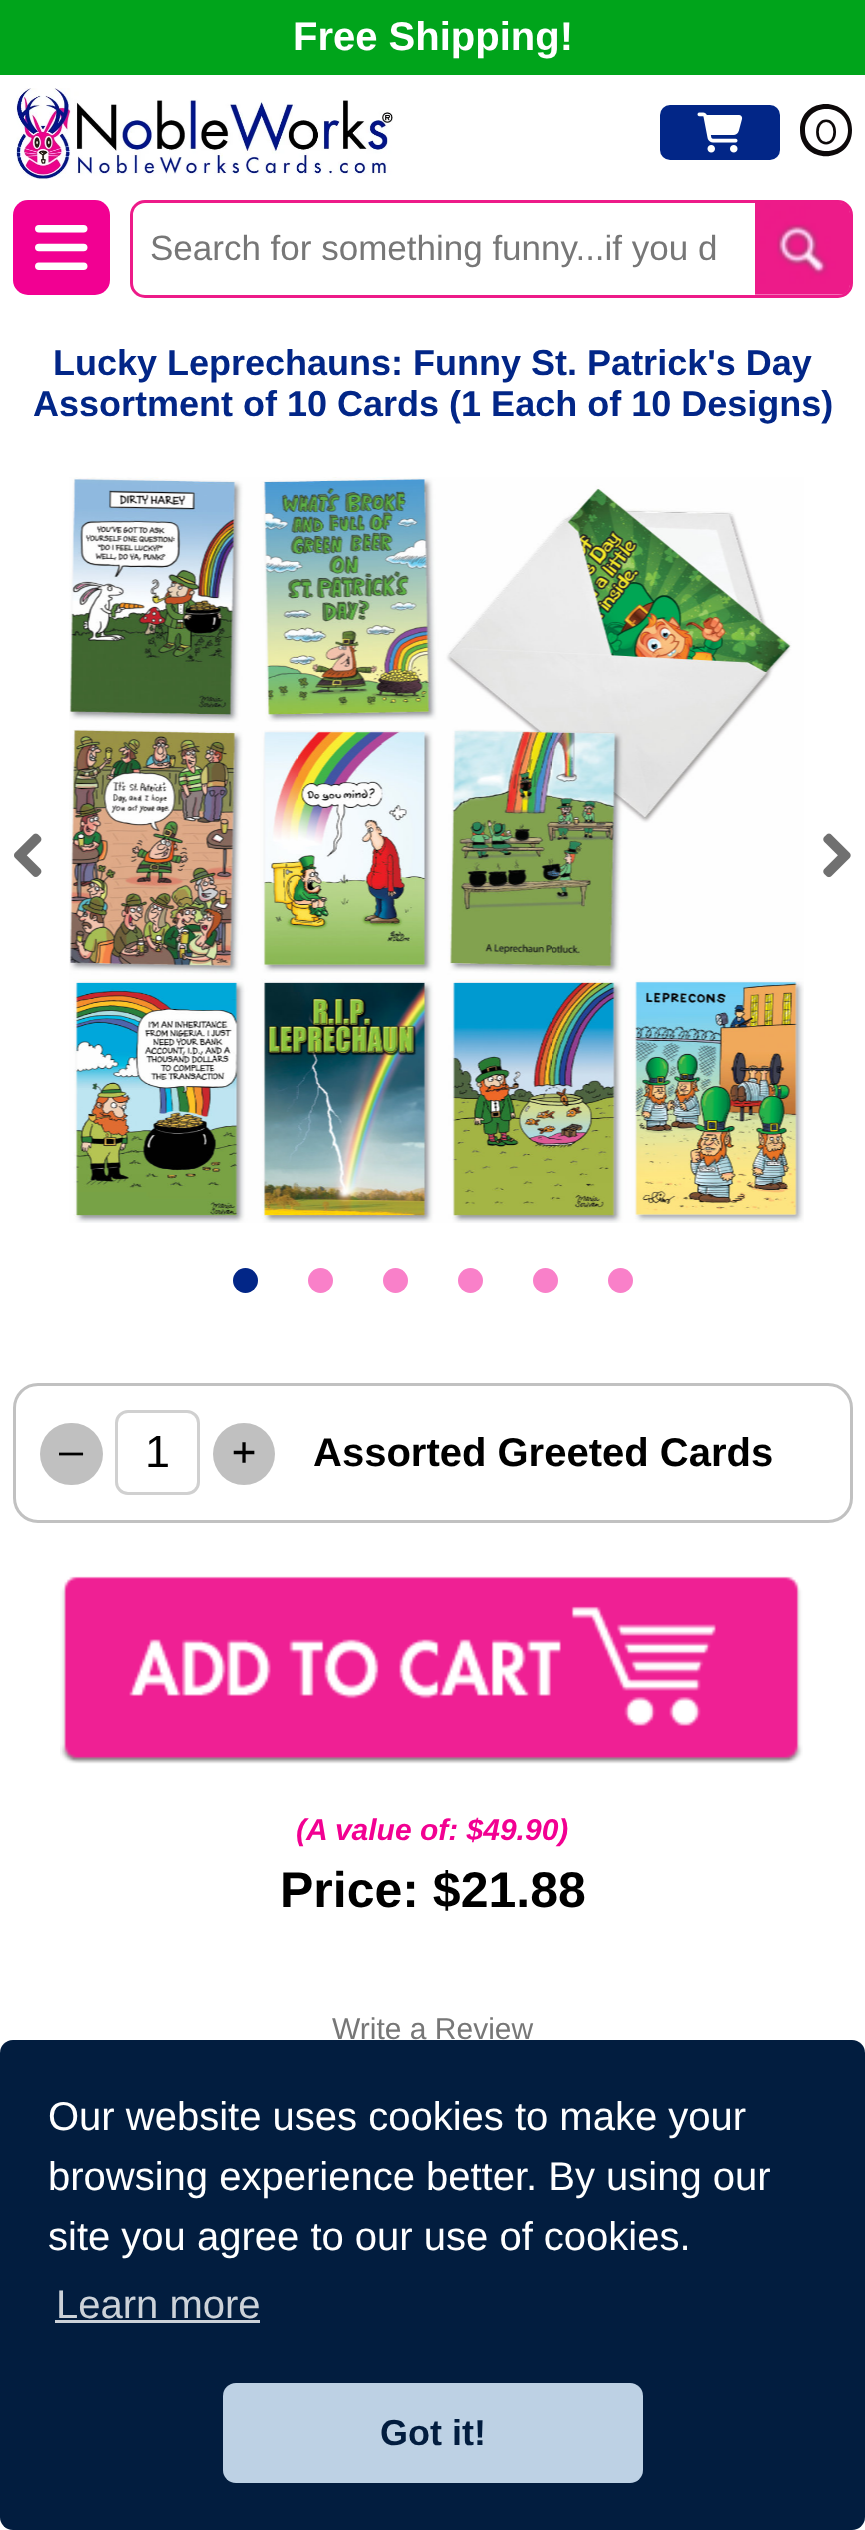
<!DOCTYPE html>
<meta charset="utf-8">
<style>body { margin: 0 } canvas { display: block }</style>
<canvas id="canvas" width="865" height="2530"></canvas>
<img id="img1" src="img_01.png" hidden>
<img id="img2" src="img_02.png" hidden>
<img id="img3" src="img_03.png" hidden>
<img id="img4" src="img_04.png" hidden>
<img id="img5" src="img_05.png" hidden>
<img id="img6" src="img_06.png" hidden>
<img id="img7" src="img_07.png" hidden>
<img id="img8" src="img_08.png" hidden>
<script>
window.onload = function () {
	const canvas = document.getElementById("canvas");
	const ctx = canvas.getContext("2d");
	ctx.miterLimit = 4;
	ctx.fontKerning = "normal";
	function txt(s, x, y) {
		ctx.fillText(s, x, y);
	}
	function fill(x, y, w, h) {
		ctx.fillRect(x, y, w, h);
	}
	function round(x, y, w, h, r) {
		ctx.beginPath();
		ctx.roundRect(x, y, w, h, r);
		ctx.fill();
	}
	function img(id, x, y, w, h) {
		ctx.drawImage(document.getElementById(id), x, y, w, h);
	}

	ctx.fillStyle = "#FFFFFF";
	fill(0, 0, 865, 2530);
	ctx.fillStyle = "#00A41B";
	fill(0, 0, 865, 75);
	img("img1", 16, 88, 377, 92);
	ctx.fillStyle = "#022687";
	round(660, 105, 120, 55, 10);
	img("img2", 697, 112, 46, 41);
	ctx.fillStyle = "#0D090A";
	ctx.beginPath();
	ctx.moveTo(848, 130);
	ctx.bezierCurveTo(848, 102, 805, 102, 805, 130);
	ctx.bezierCurveTo(805, 158, 848, 158, 848, 130);
	ctx.closePath();
	ctx.moveTo(800, 130);
	ctx.bezierCurveTo(800, 95, 852, 96, 852, 130);
	ctx.bezierCurveTo(852, 165, 800, 165, 800, 130);
	ctx.closePath();
	ctx.fill();
	ctx.fillStyle = "#F20092";
	round(13, 200, 97, 95, 15);
	img("img3", 35, 225, 53, 45);
	ctx.beginPath();
	ctx.roundRect(131.5, 201.5, 720, 95, 13.5);
	ctx.strokeStyle = "#ED1B89";
	ctx.lineWidth = 3;
	ctx.stroke();
	img("img4", 755, 203, 95, 92);
	img("img5", 69, 477, 735, 746);
	img("img6", 14, 833, 28, 44);
	img("img7", 823, 833, 28, 45);
	ctx.fillStyle = "#022687";
	ctx.beginPath();
	ctx.arc(245.5, 1280.5, 12.5, 0, Math.PI * 2);
	ctx.fill();
	ctx.fillStyle = "#F980C9";
	ctx.beginPath();
	ctx.arc(320.5, 1280.5, 12.5, 0, Math.PI * 2);
	ctx.fill();
	ctx.beginPath();
	ctx.arc(395.5, 1280.5, 12.5, 0, Math.PI * 2);
	ctx.fill();
	ctx.beginPath();
	ctx.arc(470.5, 1280.5, 12.5, 0, Math.PI * 2);
	ctx.fill();
	ctx.beginPath();
	ctx.arc(545.5, 1280.5, 12.5, 0, Math.PI * 2);
	ctx.fill();
	ctx.beginPath();
	ctx.arc(620.5, 1280.5, 12.5, 0, Math.PI * 2);
	ctx.fill();
	ctx.beginPath();
	ctx.roundRect(14.5, 1384.5, 837, 137, 23.5);
	ctx.strokeStyle = "#C1C1C1";
	ctx.stroke();
	ctx.fillStyle = "#C0C0C0";
	round(40, 1423, 63, 62, 31);
	ctx.beginPath();
	ctx.roundRect(116.5, 1411.5, 82, 82, 11.5);
	ctx.strokeStyle = "#D0D0D0";
	ctx.stroke();
	ctx.beginPath();
	ctx.arc(244, 1454, 31, 0, Math.PI * 2);
	ctx.fill();
	img("img8", 60, 1576, 743, 188);
	ctx.fillStyle = "#021D3F";
	round(0, 2040, 865, 490, 13);
	ctx.fillStyle = "#CCD2D9";
	fill(55, 2320, 205, 3);
	ctx.fillStyle = "#BDD1E4";
	round(223, 2383, 420, 100, 13);
	ctx.font = "bold 40px Liberation Sans";
	ctx.fillStyle = "#FFFFFF";
	txt("Free Shipping!", 293, 50);
	ctx.font = "35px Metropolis";
	ctx.fillStyle = "#0D090A";
	txt("0", 814, 144);
	ctx.font = "35px Liberation Sans";
	ctx.fillStyle = "#777777";
	txt("Search for something funny...if you d", 150, 260);
	ctx.font = "bold 36px Liberation Sans";
	ctx.fillStyle = "#022687";
	txt("Lucky Leprechauns: Funny St. Patrick's Day", 53, 375);
	txt("Assortment of 10 Cards (1 Each of 10 Designs)", 33, 416);
	ctx.font = "40px DejaVu Sans Mono";
	ctx.fillStyle = "#000000";
	txt("–", 59, 1465);
	ctx.font = "45px Liberation Sans";
	txt("1", 145, 1467);
	ctx.font = "40px DejaVu Sans Mono";
	txt("+", 232, 1465);
	ctx.font = "bold 40px Liberation Sans";
	txt("Assorted Greeted Cards", 313, 1466);
	ctx.font = "italic bold 30px Liberation Sans";
	ctx.fillStyle = "#F20092";
	txt("(A value of: $49.90)", 296, 1840);
	ctx.font = "bold 50px Liberation Sans";
	ctx.fillStyle = "#000000";
	txt("Price: $21.88", 280, 1907);
	ctx.font = "30px Liberation Sans";
	ctx.fillStyle = "#777777";
	txt("Write a Review", 332, 2039);
	ctx.font = "40px Liberation Sans";
	ctx.fillStyle = "#FFFFFF";
	txt("Our website uses cookies to make your", 48, 2130);
	txt("browsing experience better. By using our", 48, 2190);
	txt("site you agree to our use of cookies.", 48, 2250);
	ctx.fillStyle = "#CCD2D9";
	txt("Learn more", 56, 2318);
	ctx.font = "bold 36px Liberation Sans";
	ctx.fillStyle = "#021D3F";
	txt("Got it!", 380, 2445);
};
</script>
